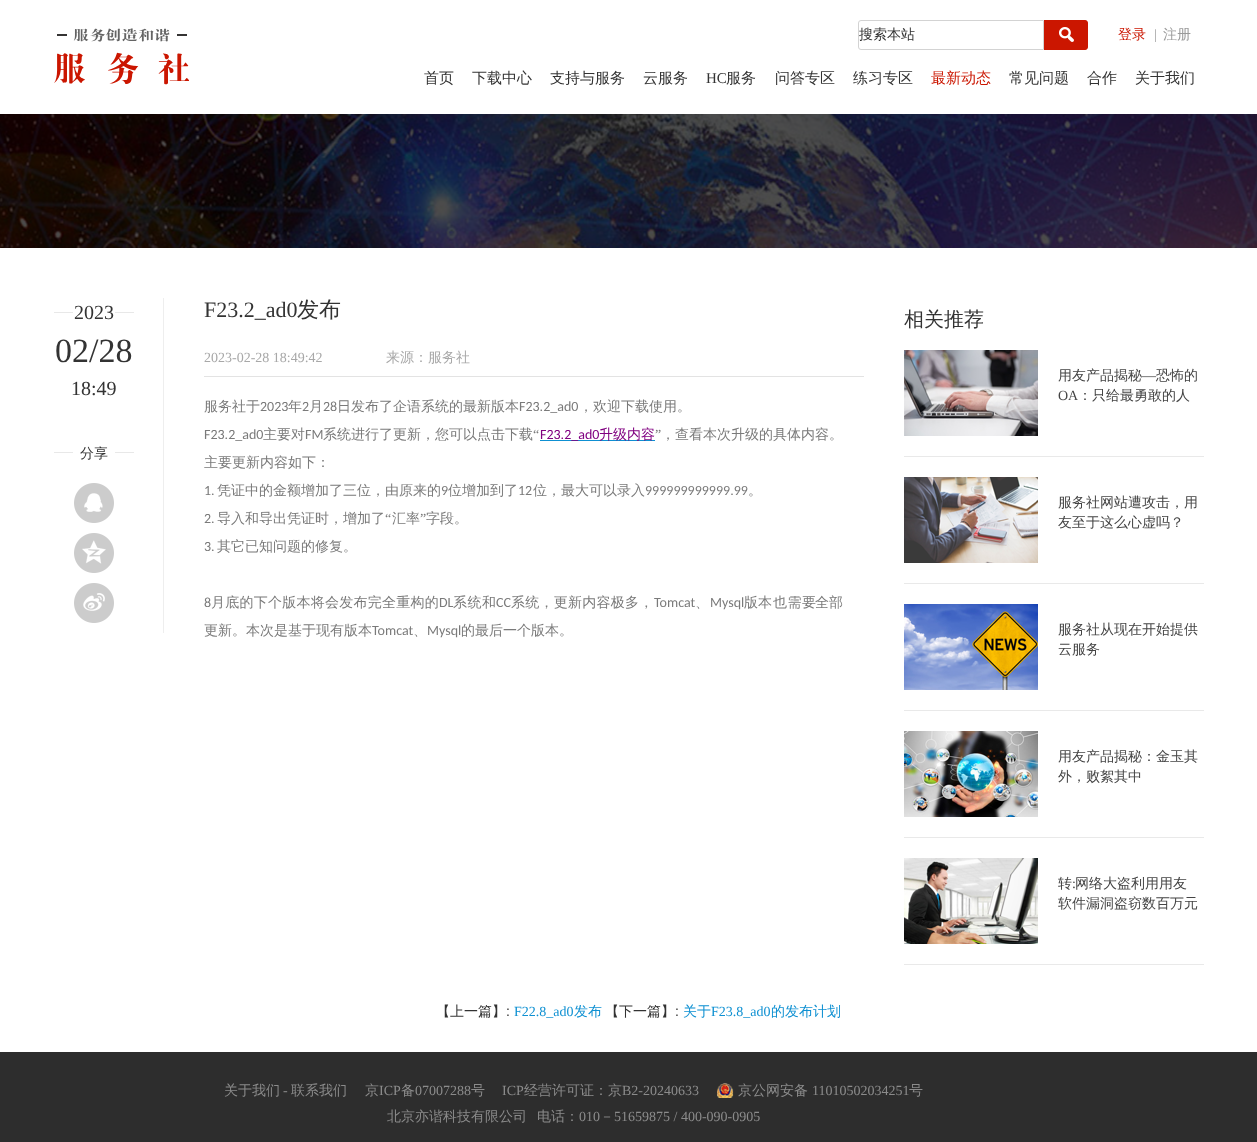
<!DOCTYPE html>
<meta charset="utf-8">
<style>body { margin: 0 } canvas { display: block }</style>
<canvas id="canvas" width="1257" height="1142"></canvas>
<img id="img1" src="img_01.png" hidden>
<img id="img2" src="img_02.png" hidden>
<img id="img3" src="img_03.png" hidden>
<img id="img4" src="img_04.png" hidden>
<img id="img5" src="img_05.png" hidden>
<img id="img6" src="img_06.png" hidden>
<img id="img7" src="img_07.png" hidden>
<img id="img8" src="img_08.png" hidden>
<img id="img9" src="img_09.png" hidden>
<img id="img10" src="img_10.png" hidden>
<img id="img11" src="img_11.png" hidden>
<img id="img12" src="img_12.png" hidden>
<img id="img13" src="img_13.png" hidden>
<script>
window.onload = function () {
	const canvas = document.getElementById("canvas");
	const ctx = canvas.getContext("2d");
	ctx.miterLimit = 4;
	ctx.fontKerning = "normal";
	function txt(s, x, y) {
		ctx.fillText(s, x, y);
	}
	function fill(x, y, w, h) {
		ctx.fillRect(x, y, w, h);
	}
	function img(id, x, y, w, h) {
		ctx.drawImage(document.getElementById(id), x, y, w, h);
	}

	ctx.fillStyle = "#FFFFFF";
	fill(0, 0, 1257, 1142);
	img("img1", 54, 28, 135, 57);
	ctx.beginPath();
	ctx.roundRect(858.5, 20.5, 185, 29, [2.5, 0, 0, 2.5]);
	ctx.strokeStyle = "#D3D3D3";
	ctx.stroke();
	img("img2", 1044, 20, 44, 30);
	img("img3", 0, 114, 1257, 134);
	ctx.fillStyle = "#EEEEEE";
	fill(163, 298, 1, 335);
	img("img4", 54, 312, 80, 1);
	img("img4", 54, 452, 80, 1);
	img("img5", 74, 483, 40, 40);
	img("img6", 74, 533, 40, 40);
	img("img7", 74, 583, 40, 40);
	ctx.fillStyle = "#E3E3E3";
	fill(204, 376, 660, 1);
	ctx.fillStyle = "#0E90D2";
	fill(540, 440, 115, 1);
	ctx.fillStyle = "#E9E9E9";
	fill(904, 456, 300, 1);
	img("img8", 904, 350, 134, 86);
	fill(904, 583, 300, 1);
	img("img9", 904, 477, 134, 86);
	fill(904, 710, 300, 1);
	img("img10", 904, 604, 134, 86);
	fill(904, 837, 300, 1);
	img("img11", 904, 731, 134, 86);
	fill(904, 964, 300, 1);
	img("img12", 904, 858, 134, 86);
	ctx.fillStyle = "#2D2D2D";
	fill(0, 1052, 1257, 90);
	img("img13", 717, 1083, 17, 15);
	ctx.font = "500 14px WenQuanYi Zen Hei";
	ctx.fillStyle = "#333333";
	txt("搜索本站", 859, 39);
	ctx.fillStyle = "#CB1600";
	txt("登录", 1118, 39);
	ctx.font = "14px Liberation Serif";
	ctx.fillStyle = "#9A9A9A";
	txt("|", 1154, 39);
	ctx.font = "500 14px WenQuanYi Zen Hei";
	txt("注册", 1163, 39);
	ctx.font = "500 15px WenQuanYi Zen Hei";
	ctx.fillStyle = "#333333";
	txt("首页", 424, 83);
	txt("下载中心", 472, 83);
	txt("支持与服务", 550, 83);
	txt("云服务", 643, 83);
	ctx.font = "15px Liberation Serif";
	txt("HC", 706, 83);
	ctx.font = "500 15px WenQuanYi Zen Hei";
	txt("服务", 726, 83);
	txt("问答专区", 775, 83);
	txt("练习专区", 853, 83);
	ctx.fillStyle = "#CB1600";
	txt("最新动态", 931, 83);
	ctx.fillStyle = "#333333";
	txt("常见问题", 1009, 83);
	txt("合作", 1087, 83);
	txt("关于我们", 1135, 83);
	ctx.font = "20px Liberation Serif";
	txt("2023", 74, 319);
	ctx.font = "34px Liberation Serif";
	txt("02/28", 55, 362);
	ctx.font = "20px Liberation Serif";
	txt("18:49", 71, 395);
	ctx.font = "500 14px WenQuanYi Zen Hei";
	txt("分享", 80, 458);
	ctx.font = "22px Liberation Serif";
	txt("F23.2_ad0", 204, 317);
	ctx.font = "500 22px WenQuanYi Zen Hei";
	txt("发布", 297, 317);
	ctx.font = "14px Liberation Serif";
	ctx.fillStyle = "#A8A8A8";
	txt("2023-02-28 18:49:42", 204, 362);
	ctx.font = "500 14px WenQuanYi Zen Hei";
	txt("来源：服务社", 386, 362);
	ctx.fillStyle = "#7A7A7A";
	txt("服务社于", 204, 411);
	ctx.font = "14px Carlito";
	txt("2023", 260, 411);
	ctx.font = "500 14px WenQuanYi Zen Hei";
	txt("年", 288, 411);
	ctx.font = "14px Carlito";
	txt("2", 302, 411);
	ctx.font = "500 14px WenQuanYi Zen Hei";
	txt("月", 309, 411);
	ctx.font = "14px Carlito";
	txt("28", 323, 411);
	ctx.font = "500 14px WenQuanYi Zen Hei";
	txt("日发布了企语系统的最新版本", 337, 411);
	ctx.font = "14px Carlito";
	txt("F23.2_ad0", 519, 411);
	ctx.font = "500 14px WenQuanYi Zen Hei";
	txt("，欢迎下载使用。", 579, 411);
	ctx.font = "14px Carlito";
	txt("F23.2_ad0", 204, 439);
	ctx.font = "500 14px WenQuanYi Zen Hei";
	txt("主要对", 263, 439);
	ctx.font = "14px Carlito";
	txt("FM", 305, 439);
	ctx.font = "500 14px WenQuanYi Zen Hei";
	txt("系统进行了更新，您可以点击下载", 323, 439);
	ctx.font = "14px Liberation Serif";
	txt("“", 533, 439);
	ctx.font = "14px Carlito";
	ctx.fillStyle = "#800080";
	txt("F23.2_ad0", 540, 439);
	ctx.font = "500 14px WenQuanYi Zen Hei";
	txt("升级内容", 599, 439);
	ctx.font = "14px Liberation Serif";
	ctx.fillStyle = "#7A7A7A";
	txt("”", 655, 439);
	ctx.font = "500 14px WenQuanYi Zen Hei";
	txt("，查看本次升级的具体内容。", 661, 439);
	txt("主要更新内容如下：", 204, 467);
	ctx.font = "14px Carlito";
	txt("1.", 204, 495);
	ctx.font = "500 14px WenQuanYi Zen Hei";
	txt("凭证中的金额增加了三位，由原来的", 217, 495);
	ctx.font = "14px Carlito";
	txt("9", 441, 495);
	ctx.font = "500 14px WenQuanYi Zen Hei";
	txt("位增加到了", 448, 495);
	ctx.font = "14px Carlito";
	txt("12", 518, 495);
	ctx.font = "500 14px WenQuanYi Zen Hei";
	txt("位，最大可以录入", 533, 495);
	ctx.font = "14px Carlito";
	txt("999999999999.99", 645, 495);
	ctx.font = "500 14px WenQuanYi Zen Hei";
	txt("。", 748, 495);
	ctx.font = "14px Carlito";
	txt("2.", 204, 523);
	ctx.font = "500 14px WenQuanYi Zen Hei";
	txt("导入和导出凭证时，增加了", 217, 523);
	ctx.font = "14px Liberation Serif";
	txt("“", 385, 523);
	ctx.font = "500 14px WenQuanYi Zen Hei";
	txt("汇率", 392, 523);
	ctx.font = "14px Liberation Serif";
	txt("”", 420, 523);
	ctx.font = "500 14px WenQuanYi Zen Hei";
	txt("字段。", 426, 523);
	ctx.font = "14px Carlito";
	txt("3.", 204, 551);
	ctx.font = "500 14px WenQuanYi Zen Hei";
	txt("其它已知问题的修复。", 217, 551);
	ctx.font = "14px Carlito";
	txt("8", 204, 607);
	ctx.letterSpacing = "0.25px";
	ctx.font = "500 14px WenQuanYi Zen Hei";
	txt("月底的下个版本将会发布完全重构的", 211, 607);
	ctx.letterSpacing = "0px";
	ctx.font = "14px Carlito";
	txt("DL", 439, 607);
	ctx.letterSpacing = "0.5px";
	ctx.font = "500 14px WenQuanYi Zen Hei";
	txt("系统和", 453, 607);
	ctx.letterSpacing = "0px";
	ctx.font = "14px Carlito";
	txt("CC", 496, 607);
	ctx.letterSpacing = "0.25px";
	ctx.font = "500 14px WenQuanYi Zen Hei";
	txt("系统，更新内容极多，", 511, 607);
	ctx.letterSpacing = "0px";
	ctx.font = "14px Carlito";
	txt("Tomcat", 654, 607);
	ctx.font = "500 14px WenQuanYi Zen Hei";
	txt("、", 695, 607);
	ctx.font = "14px Carlito";
	txt("Mysql", 710, 607);
	ctx.font = "500 14px WenQuanYi Zen Hei";
	txt("版本", 744, 607);
	ctx.letterSpacing = "0.5px";
	txt("也需要", 773, 607);
	ctx.letterSpacing = "0px";
	txt("全部", 815, 607);
	txt("更新。本次是基于现有版本", 204, 635);
	ctx.font = "14px Carlito";
	txt("Tomcat", 372, 635);
	ctx.font = "500 14px WenQuanYi Zen Hei";
	txt("、", 413, 635);
	ctx.font = "14px Carlito";
	txt("Mysql", 427, 635);
	ctx.font = "500 14px WenQuanYi Zen Hei";
	txt("的最后一个版本。", 461, 635);
	ctx.font = "500 20px WenQuanYi Zen Hei";
	ctx.fillStyle = "#333333";
	txt("相关推荐", 904, 326);
	ctx.font = "500 14px WenQuanYi Zen Hei";
	ctx.fillStyle = "#444444";
	txt("用友产品揭秘", 1058, 380);
	ctx.font = "14px Liberation Serif";
	txt("—", 1142, 380);
	ctx.font = "500 14px WenQuanYi Zen Hei";
	txt("恐怖的", 1156, 380);
	ctx.font = "14px Liberation Serif";
	txt("OA", 1058, 400);
	ctx.font = "500 14px WenQuanYi Zen Hei";
	txt("：只给最勇敢的人", 1078, 400);
	txt("服务社网站遭攻击，用", 1058, 507);
	txt("友至于这么心虚吗？", 1058, 527);
	txt("服务社从现在开始提供", 1058, 634);
	txt("云服务", 1058, 654);
	txt("用友产品揭秘：金玉其", 1058, 761);
	txt("外，败絮其中", 1058, 781);
	txt("转", 1058, 888);
	ctx.font = "14px Liberation Serif";
	txt(":", 1072, 888);
	ctx.font = "500 14px WenQuanYi Zen Hei";
	txt("网络大盗利用用友", 1075, 888);
	txt("软件漏洞盗窃数百万元", 1058, 908);
	ctx.fillStyle = "#333333";
	txt("【上一篇】", 436, 1016);
	ctx.font = "14px Liberation Sans";
	txt(":", 506, 1016);
	ctx.font = "14px Liberation Serif";
	ctx.fillStyle = "#0E90D2";
	txt("F22.8_ad0", 514, 1016);
	ctx.font = "500 14px WenQuanYi Zen Hei";
	txt("发布", 574, 1016);
	ctx.fillStyle = "#333333";
	txt("【下一篇】", 605, 1016);
	ctx.font = "14px Liberation Sans";
	txt(":", 675, 1016);
	ctx.font = "500 14px WenQuanYi Zen Hei";
	ctx.fillStyle = "#0E90D2";
	txt("关于", 683, 1016);
	ctx.font = "14px Liberation Serif";
	txt("F23.8_ad0", 711, 1016);
	ctx.font = "500 14px WenQuanYi Zen Hei";
	txt("的发布计划", 771, 1016);
	ctx.fillStyle = "#8B8B8B";
	txt("关于我们", 224, 1095);
	ctx.font = "14px Liberation Serif";
	txt("-", 283, 1095);
	ctx.font = "500 14px WenQuanYi Zen Hei";
	txt("联系我们", 291, 1095);
	txt("京", 365, 1095);
	ctx.font = "14px Liberation Serif";
	txt("ICP", 379, 1095);
	ctx.font = "500 14px WenQuanYi Zen Hei";
	txt("备", 401, 1095);
	ctx.font = "14px Liberation Serif";
	txt("07007288", 415, 1095);
	ctx.font = "500 14px WenQuanYi Zen Hei";
	txt("号", 471, 1095);
	ctx.font = "14px Liberation Serif";
	txt("ICP", 502, 1095);
	ctx.font = "500 14px WenQuanYi Zen Hei";
	txt("经营许可证：京", 524, 1095);
	ctx.font = "14px Liberation Serif";
	txt("B2-20240633", 622, 1095);
	ctx.font = "500 14px WenQuanYi Zen Hei";
	txt("京公网安备", 738, 1095);
	ctx.font = "14px Liberation Serif";
	txt("11010502034251", 812, 1095);
	ctx.font = "500 14px WenQuanYi Zen Hei";
	txt("号", 909, 1095);
	txt("北京亦谐科技有限公司", 387, 1121);
	txt("电话：", 537, 1121);
	ctx.font = "14px Liberation Serif";
	txt("010", 579, 1121);
	ctx.font = "500 14px WenQuanYi Zen Hei";
	txt("－", 600, 1121);
	ctx.font = "14px Liberation Serif";
	txt("51659875 / 400-090-0905", 614, 1121);
};
</script>
